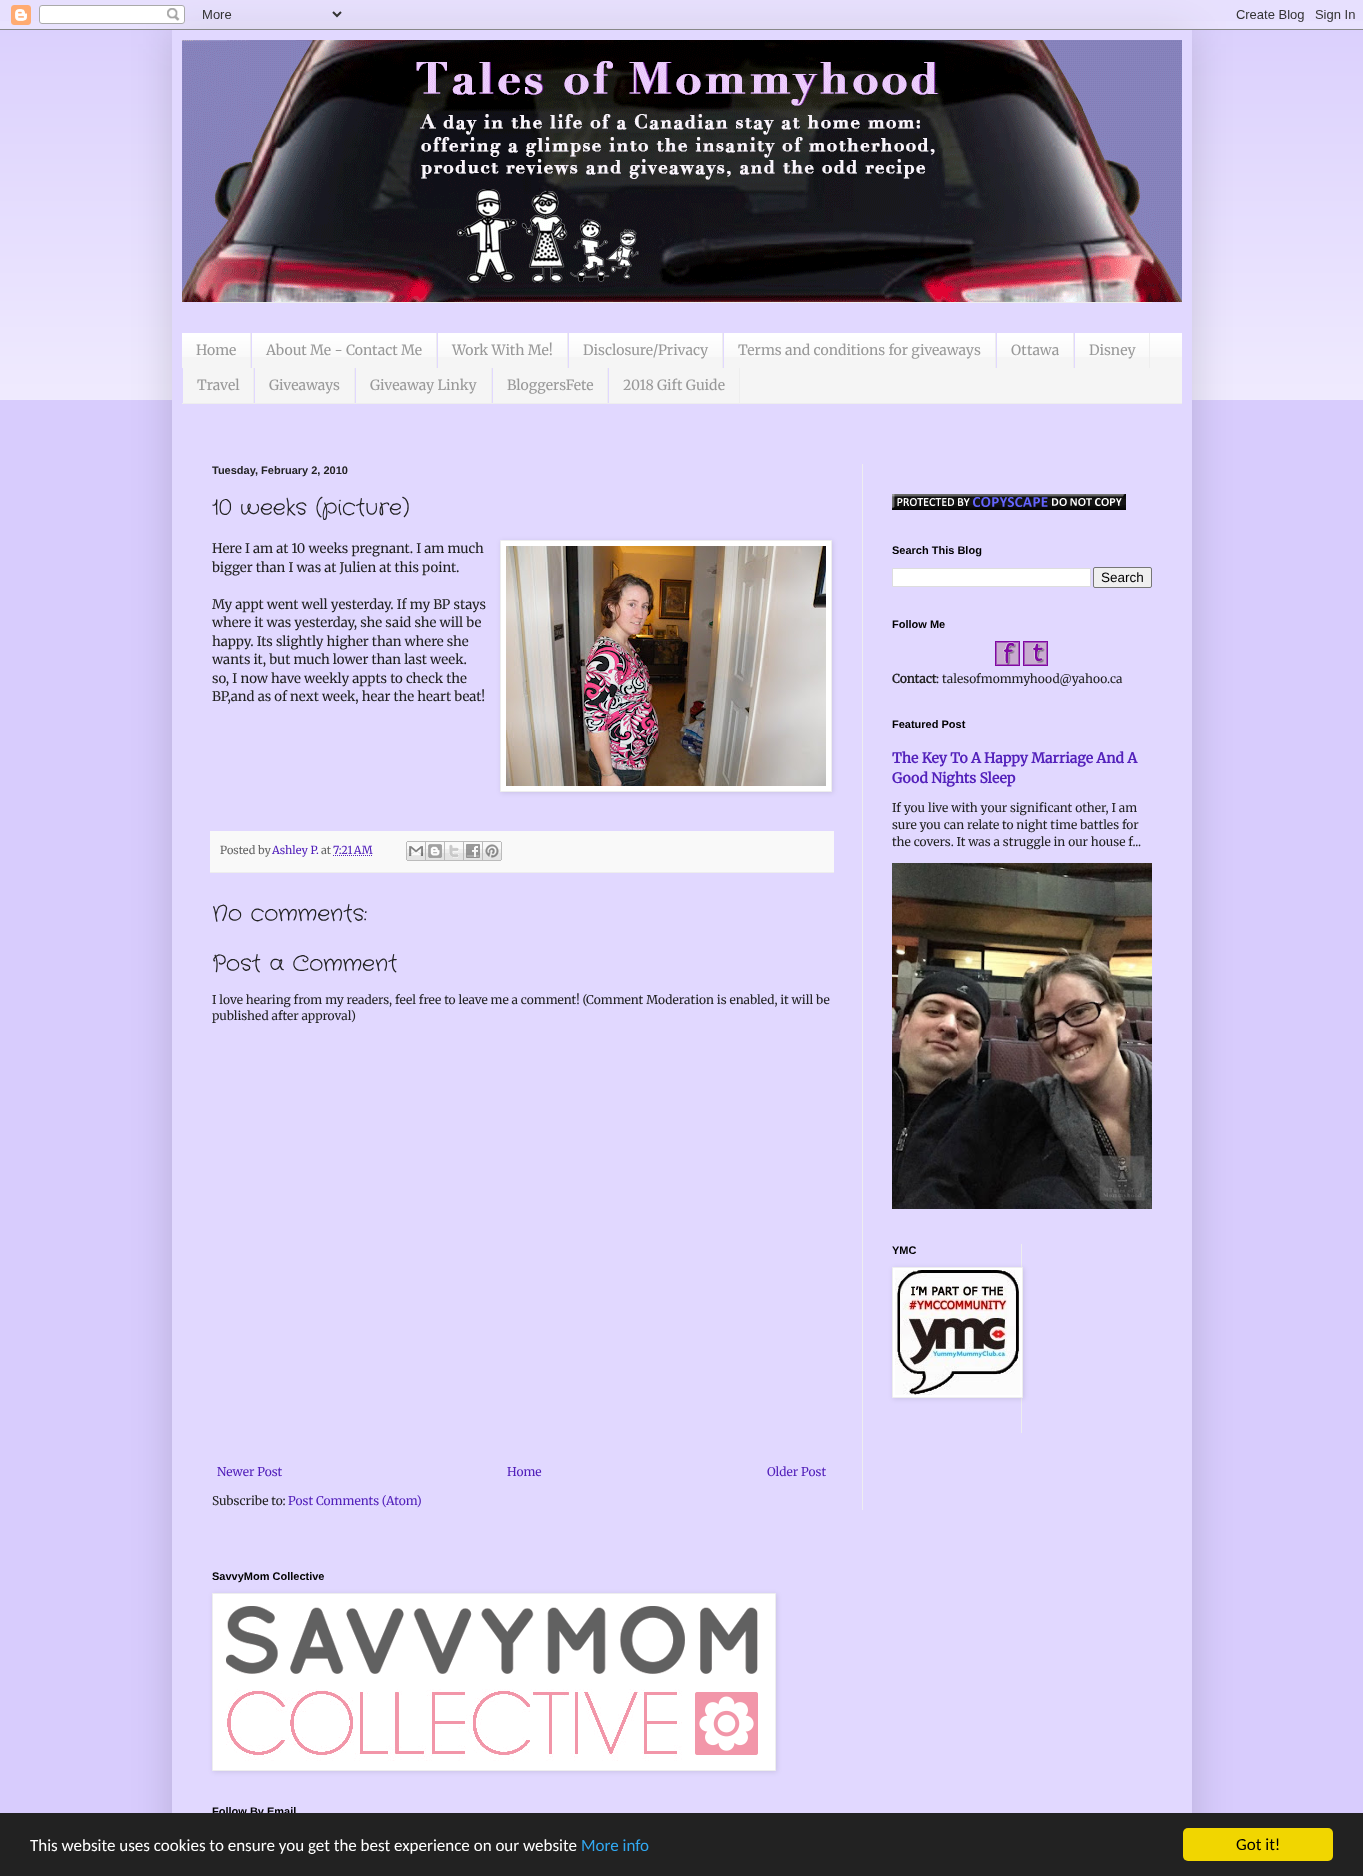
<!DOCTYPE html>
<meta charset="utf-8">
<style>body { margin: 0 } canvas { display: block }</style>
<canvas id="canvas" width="1363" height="1876"></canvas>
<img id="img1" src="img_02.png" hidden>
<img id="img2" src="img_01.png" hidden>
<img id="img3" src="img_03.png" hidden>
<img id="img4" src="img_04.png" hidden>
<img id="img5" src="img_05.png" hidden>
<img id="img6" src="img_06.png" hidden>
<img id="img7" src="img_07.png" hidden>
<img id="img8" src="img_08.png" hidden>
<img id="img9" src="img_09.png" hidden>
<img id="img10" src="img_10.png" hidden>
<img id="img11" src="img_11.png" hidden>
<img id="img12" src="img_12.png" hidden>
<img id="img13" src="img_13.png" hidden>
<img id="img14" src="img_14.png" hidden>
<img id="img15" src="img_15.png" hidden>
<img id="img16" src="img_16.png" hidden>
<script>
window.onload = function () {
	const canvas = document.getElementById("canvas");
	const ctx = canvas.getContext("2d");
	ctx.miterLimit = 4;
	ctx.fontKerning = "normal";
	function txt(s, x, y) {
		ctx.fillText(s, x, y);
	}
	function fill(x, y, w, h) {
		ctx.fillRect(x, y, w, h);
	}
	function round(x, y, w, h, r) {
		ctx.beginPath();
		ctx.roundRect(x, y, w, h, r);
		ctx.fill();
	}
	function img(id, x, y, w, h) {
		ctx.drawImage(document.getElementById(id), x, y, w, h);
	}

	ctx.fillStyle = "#D8CCFD";
	fill(0, 0, 1363, 1876);
	img("img1", 0, 21, 1363, 379);
	ctx.fillStyle = "rgba(0, 0, 0, 0.15)";
	ctx.filter = "blur(20px)";
	ctx.beginPath();
	ctx.rect(172, 30, 1020, 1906);
	ctx.fill();
	ctx.filter = "none";
	img("img2", 0, 0, 1363, 30);
	ctx.fillStyle = "#E1D8FF";
	fill(172, 30, 1020, 1783);
	img("img3", 182, 40, 1000, 262);
	ctx.fillStyle = "#EEEEEE";
	fill(212, 302, 940, 1);
	ctx.fillStyle = "#F5F5F5";
	fill(182, 334, 1000, 69);
	img("img4", 182, 333, 1000, 24);
	ctx.fillStyle = "#EEEEEE";
	fill(182, 403, 1000, 1);
	fill(250, 333, 1, 35);
	fill(436, 333, 1, 35);
	ctx.fillStyle = "#E1D8FF";
	fill(251, 333, 1, 35);
	ctx.fillStyle = "#EEEEEE";
	fill(567, 333, 1, 35);
	ctx.fillStyle = "#E1D8FF";
	fill(437, 333, 1, 35);
	ctx.fillStyle = "#EEEEEE";
	fill(722, 333, 1, 35);
	ctx.fillStyle = "#E1D8FF";
	fill(568, 333, 1, 35);
	ctx.fillStyle = "#EEEEEE";
	fill(995, 333, 1, 35);
	ctx.fillStyle = "#E1D8FF";
	fill(723, 333, 1, 35);
	ctx.fillStyle = "#EEEEEE";
	fill(1073, 333, 1, 35);
	ctx.fillStyle = "#E1D8FF";
	fill(996, 333, 1, 35);
	ctx.fillStyle = "#EEEEEE";
	fill(1149, 333, 1, 35);
	ctx.fillStyle = "#E1D8FF";
	fill(1074, 333, 1, 35);
	ctx.fillStyle = "#EEEEEE";
	fill(253, 368, 1, 35);
	ctx.fillStyle = "#E1D8FF";
	fill(182, 368, 1, 35);
	ctx.fillStyle = "#EEEEEE";
	fill(354, 368, 1, 35);
	ctx.fillStyle = "#E1D8FF";
	fill(254, 368, 1, 35);
	ctx.fillStyle = "#EEEEEE";
	fill(491, 368, 1, 35);
	ctx.fillStyle = "#E1D8FF";
	fill(355, 368, 1, 35);
	ctx.fillStyle = "#EEEEEE";
	fill(607, 368, 1, 35);
	ctx.fillStyle = "#E1D8FF";
	fill(492, 368, 1, 35);
	ctx.fillStyle = "#EEEEEE";
	fill(739, 368, 1, 35);
	ctx.fillStyle = "#E1D8FF";
	fill(608, 368, 1, 35);
	ctx.fillStyle = "#EEEEEE";
	fill(862, 464, 1, 1046);
	ctx.fillStyle = "rgba(0, 0, 0, 0.1)";
	ctx.filter = "blur(2.5px)";
	ctx.beginPath();
	ctx.rect(501, 541, 332, 252);
	ctx.fill();
	ctx.filter = "none";
	ctx.fillStyle = "#FFFFFF";
	ctx.beginPath();
	ctx.rect(500.5, 540.5, 331, 251);
	ctx.fill();
	ctx.strokeStyle = "#EEEEEE";
	ctx.stroke();
	img("img5", 506, 546, 320, 240);
	ctx.fillStyle = "#F9F9F9";
	fill(210, 831, 624, 41);
	ctx.fillStyle = "#EEEEEE";
	fill(210, 872, 624, 1);
	ctx.beginPath();
	ctx.moveTo(333, 855.5);
	ctx.lineTo(372, 855.5);
	ctx.strokeStyle = "#5321BB";
	ctx.setLineDash([1, 1]);
	ctx.stroke();
	img("img6", 406, 841, 20, 20);
	img("img7", 426, 841, 19, 20);
	img("img8", 445, 841, 19, 20);
	img("img9", 464, 841, 19, 20);
	img("img10", 483, 841, 19, 20);
	img("img11", 892, 494, 234, 16);
	ctx.fillStyle = "#FFFFFF";
	ctx.beginPath();
	ctx.rect(892.5, 568.5, 198, 18);
	ctx.fill();
	ctx.strokeStyle = "#DDDDDD";
	ctx.setLineDash([]);
	ctx.stroke();
	ctx.fillStyle = "#EFEFEF";
	ctx.beginPath();
	ctx.roundRect(1093.5, 567.5, 58, 20, 1.5);
	ctx.fill();
	ctx.strokeStyle = "#767676";
	ctx.stroke();
	img("img12", 995, 641, 25, 25);
	img("img13", 1023, 641, 25, 25);
	img("img14", 892, 863, 260, 346);
	ctx.fillStyle = "#EEEEEE";
	fill(1021, 1244, 1, 189);
	ctx.fillStyle = "rgba(0, 0, 0, 0.1)";
	ctx.filter = "blur(2.5px)";
	ctx.beginPath();
	ctx.rect(893, 1268, 131, 131);
	ctx.fill();
	ctx.filter = "none";
	ctx.fillStyle = "#FFFFFF";
	ctx.beginPath();
	ctx.rect(892.5, 1267.5, 130, 130);
	ctx.fill();
	ctx.strokeStyle = "#EEEEEE";
	ctx.stroke();
	img("img15", 895, 1270, 125, 125);
	ctx.fillStyle = "rgba(0, 0, 0, 0.1)";
	ctx.filter = "blur(2.5px)";
	ctx.beginPath();
	ctx.rect(213, 1594, 564, 178);
	ctx.fill();
	ctx.filter = "none";
	ctx.fillStyle = "#FFFFFF";
	ctx.beginPath();
	ctx.rect(212.5, 1593.5, 563, 177);
	ctx.fill();
	ctx.stroke();
	img("img16", 226, 1606, 532, 155);
	ctx.font = "300 14px Merriweather";
	ctx.fillStyle = "#999999";
	txt("Home", 196, 355);
	txt("About Me - Contact Me", 266, 355);
	txt("Work With Me!", 452, 355);
	txt("Disclosure/Privacy", 583, 355);
	txt("Terms and conditions for giveaways", 738, 355);
	txt("Ottawa", 1011, 355);
	txt("Disney", 1089, 355);
	txt("Travel", 197, 390);
	txt("Giveaways", 269, 390);
	txt("Giveaway Linky", 370, 390);
	txt("BloggersFete", 507, 390);
	txt("2018 Gift Guide", 623, 390);
	ctx.font = "bold 11px Liberation Sans";
	ctx.fillStyle = "#222222";
	txt("Tuesday, February 2, 2010", 212, 474);
	ctx.font = "22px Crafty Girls";
	txt("10 weeks (picture)", 212, 514);
	ctx.font = "300 13.2px Merriweather";
	txt("Here I am at 10 weeks pregnant. I am much", 212, 553);
	txt("bigger than I was at Julien at this point.", 212, 572);
	txt("My appt went well yesterday. If my BP stays", 212, 609);
	txt("where it was yesterday, she said she will be", 212, 627);
	txt("happy. Its slightly higher than where she", 212, 646);
	txt("wants it, but much lower than last week.", 212, 664);
	txt("so, I now have weekly appts to check the", 212, 683);
	txt("BP,and as of next week, hear the heart beat!", 212, 701);
	ctx.font = "300 11px Merriweather";
	ctx.fillStyle = "#666666";
	txt("Posted by", 220, 854);
	ctx.fillStyle = "#5321BB";
	txt("Ashley P.", 272, 854);
	ctx.fillStyle = "#666666";
	txt("at", 321, 854);
	ctx.fillStyle = "#5321BB";
	txt("7:21 AM", 333, 854);
	ctx.font = "22px Crafty Girls";
	ctx.fillStyle = "#222222";
	txt("No comments:", 212, 920);
	txt("Post a Comment", 212, 970);
	ctx.font = "300 12px Merriweather";
	txt("I love hearing from my readers, feel free to leave me a comment! (Comment Moderation is enabled, it will be", 212, 1004);
	txt("published after approval)", 212, 1020);
	ctx.fillStyle = "#5321BB";
	txt("Newer Post", 217, 1476);
	txt("Home", 507, 1476);
	txt("Older Post", 767, 1476);
	ctx.fillStyle = "#222222";
	txt("Subscribe to:", 212, 1505);
	ctx.fillStyle = "#5321BB";
	txt("Post Comments (Atom)", 288, 1505);
	ctx.font = "bold 11px Liberation Sans";
	ctx.fillStyle = "#000000";
	txt("Search This Blog", 892, 554);
	ctx.font = "13.5px Liberation Sans";
	txt("Search", 1101, 582);
	ctx.font = "bold 11px Liberation Sans";
	txt("Follow Me", 892, 628);
	ctx.font = "bold 12px Merriweather";
	ctx.fillStyle = "#222222";
	txt("Contact", 892, 683);
	ctx.font = "300 12px Merriweather";
	txt(": talesofmommyhood@yahoo.ca", 936, 683);
	ctx.font = "bold 11px Liberation Sans";
	ctx.fillStyle = "#000000";
	txt("Featured Post", 892, 728);
	ctx.font = "bold 14px Merriweather";
	ctx.fillStyle = "#5321BB";
	txt("The Key To A Happy Marriage And A", 892, 763);
	txt("Good Nights Sleep", 892, 783);
	ctx.font = "300 12px Merriweather";
	ctx.fillStyle = "#222222";
	txt("If you live with your significant other, I am", 892, 812);
	txt("sure you can relate to night time battles for", 892, 829);
	txt("the covers. It was a struggle in our house f...", 892, 846);
	ctx.font = "bold 11px Liberation Sans";
	ctx.fillStyle = "#000000";
	txt("YMC", 892, 1254);
	txt("SavvyMom Collective", 212, 1580);
	txt("Follow By Email", 212, 1815);
	ctx.fillStyle = "#222222";
	fill(0, 1813, 1363, 63);
	ctx.font = "17px Carlito";
	ctx.fillStyle = "#FFFFFF";
	txt("This website uses cookies to ensure you get the best experience on our website", 30, 1851);
	ctx.fillStyle = "#31A8F0";
	txt("More info", 581, 1851);
	ctx.fillStyle = "#F1D600";
	round(1183, 1828, 150, 33, 5);
	ctx.fillStyle = "#000000";
	txt("Got it!", 1236, 1850);
};
</script>
